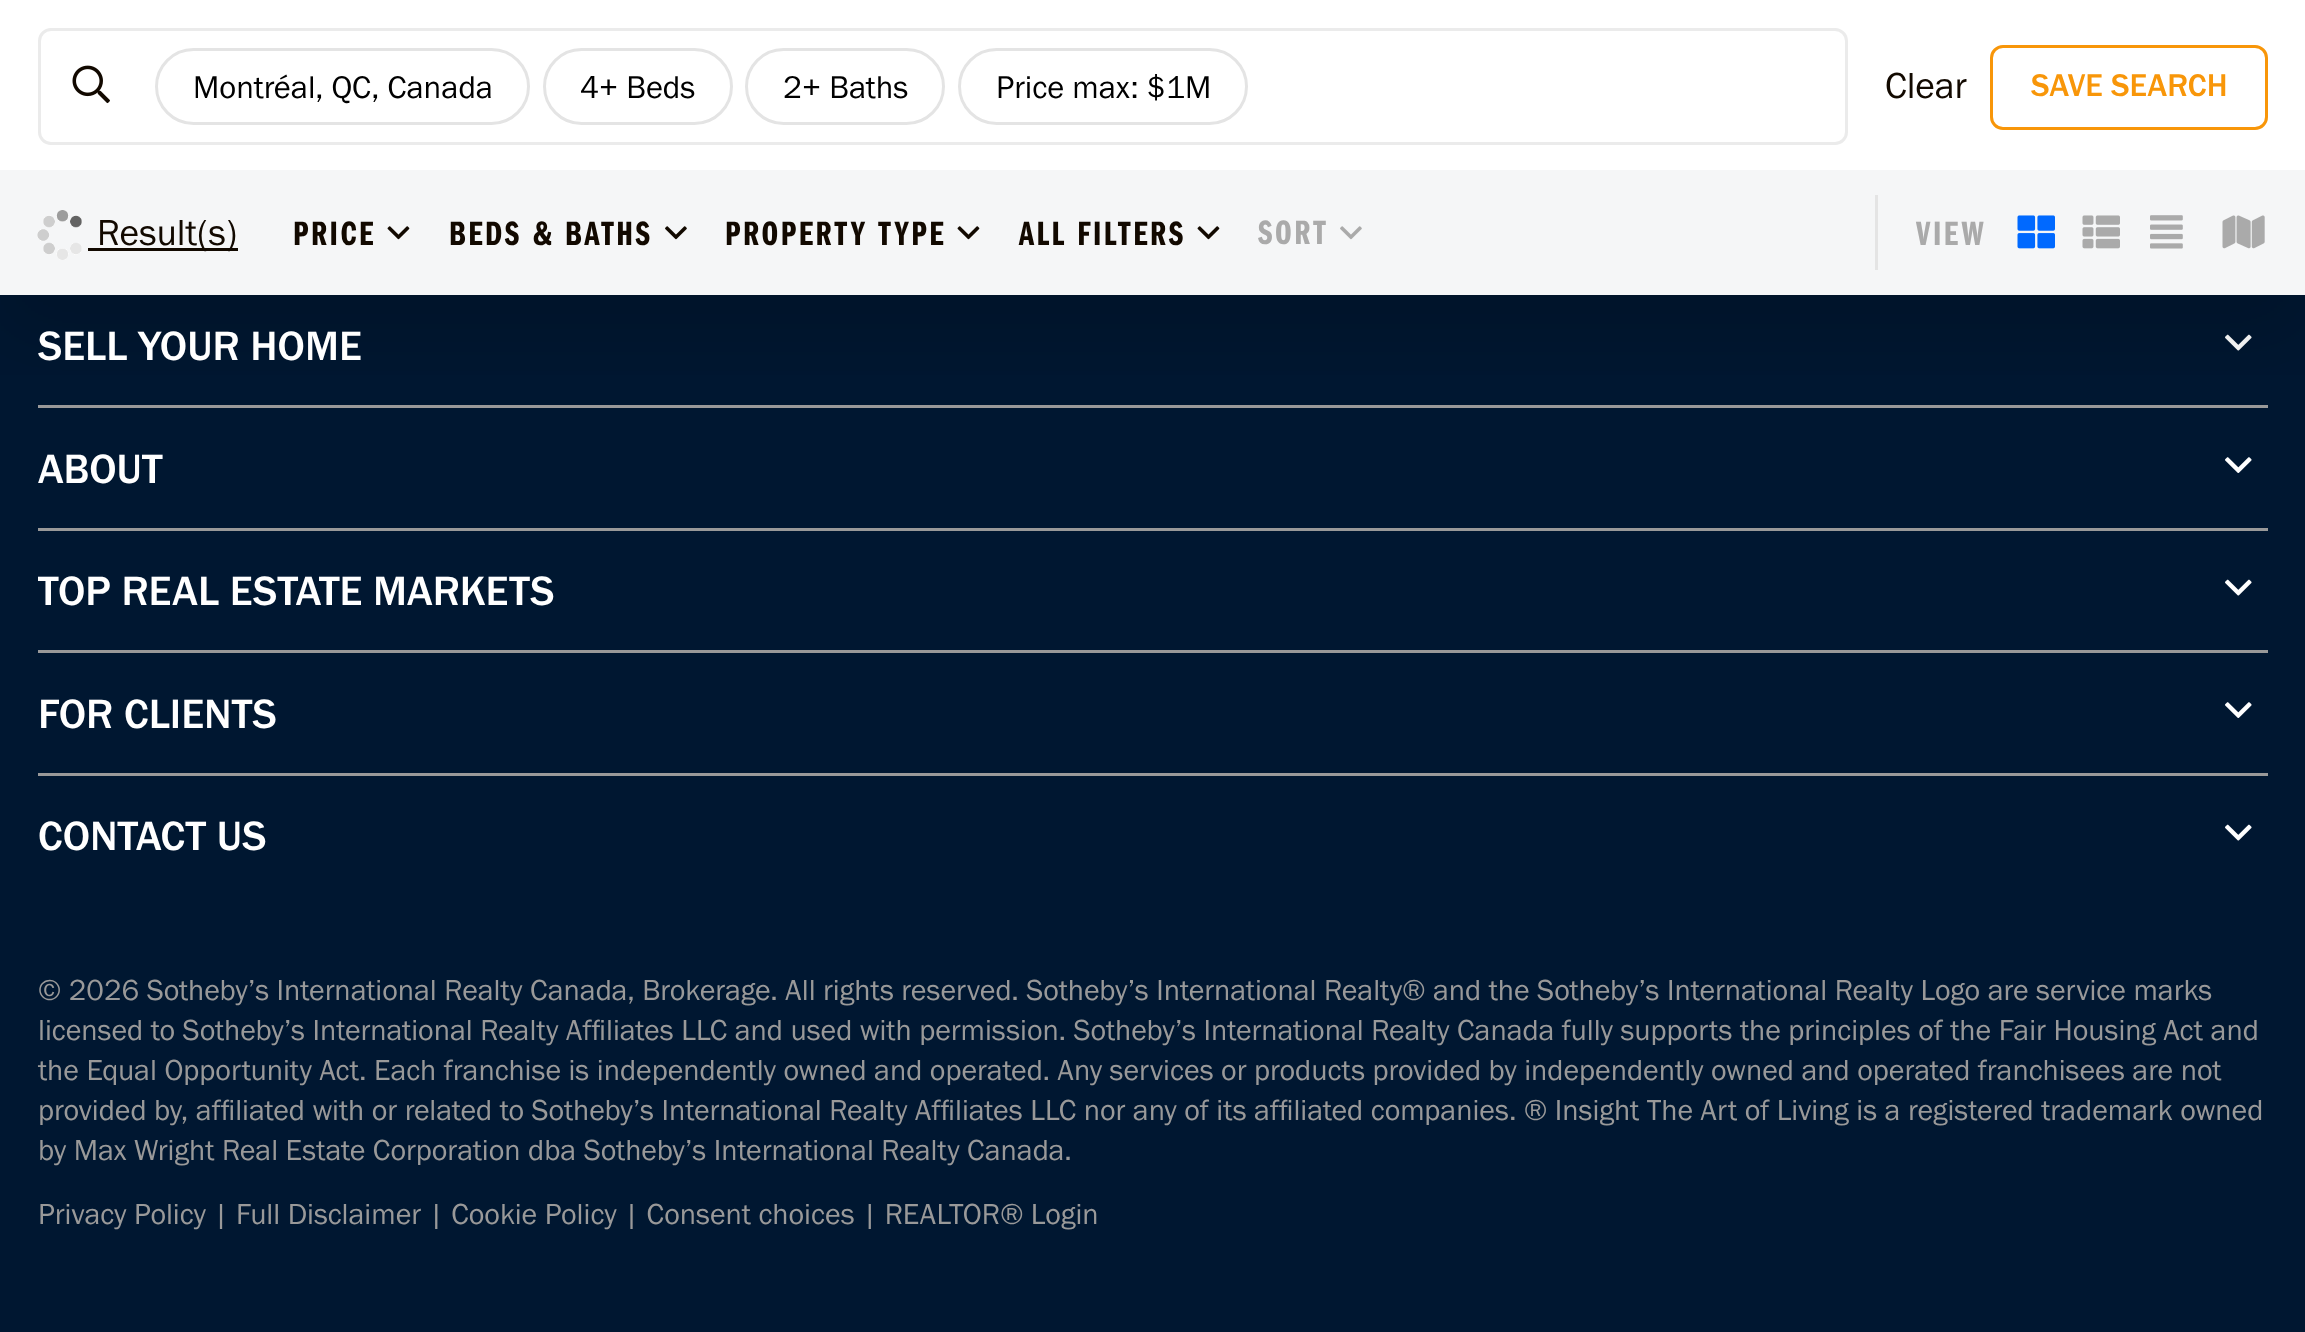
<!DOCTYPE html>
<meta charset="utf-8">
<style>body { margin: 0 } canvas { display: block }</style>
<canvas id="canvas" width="2305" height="1332"></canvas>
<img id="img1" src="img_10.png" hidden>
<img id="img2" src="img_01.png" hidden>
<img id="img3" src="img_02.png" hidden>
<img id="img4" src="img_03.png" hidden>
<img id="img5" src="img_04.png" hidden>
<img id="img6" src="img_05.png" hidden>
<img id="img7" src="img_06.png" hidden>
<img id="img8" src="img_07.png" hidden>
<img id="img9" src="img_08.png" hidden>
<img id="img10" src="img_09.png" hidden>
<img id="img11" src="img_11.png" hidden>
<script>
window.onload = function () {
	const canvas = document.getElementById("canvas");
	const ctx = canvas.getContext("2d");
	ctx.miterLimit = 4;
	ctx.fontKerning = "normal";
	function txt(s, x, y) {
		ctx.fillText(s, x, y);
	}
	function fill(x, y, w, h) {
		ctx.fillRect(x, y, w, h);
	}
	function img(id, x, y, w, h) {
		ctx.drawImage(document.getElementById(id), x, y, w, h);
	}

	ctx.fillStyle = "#001731";
	fill(0, 0, 2305, 1332);
	ctx.fillStyle = "#FFFFFF";
	fill(0, 3, 2305, 167);
	ctx.fillStyle = "#999999";
	fill(38, 405, 2230, 3);
	img("img1", 2225, 334, 27, 17);
	ctx.save();
	ctx.beginPath();
	ctx.rect(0, 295, 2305, 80);
	ctx.clip();
	ctx.fillStyle = "rgba(0, 0, 0, 0.15)";
	ctx.filter = "blur(37.5px)";
	ctx.beginPath();
	ctx.rect(0, 40, 2305, 293);
	ctx.fill();
	ctx.filter = "none";
	ctx.restore();
	ctx.fillStyle = "#FFFFFF";
	fill(0, 0, 2305, 3);
	ctx.beginPath();
	ctx.roundRect(39.5, 29.5, 1807, 114, 11.5);
	ctx.strokeStyle = "#EBEBEB";
	ctx.lineWidth = 3;
	ctx.stroke();
	img("img2", 72, 65, 38, 39);
	ctx.beginPath();
	ctx.roundRect(156.5, 49.5, 372, 74, 37);
	ctx.strokeStyle = "#E4E4E4";
	ctx.stroke();
	ctx.beginPath();
	ctx.roundRect(544.5, 49.5, 187, 74, 37);
	ctx.stroke();
	ctx.beginPath();
	ctx.roundRect(746.5, 49.5, 197, 74, 37);
	ctx.stroke();
	ctx.beginPath();
	ctx.roundRect(959.5, 49.5, 287, 74, 37);
	ctx.stroke();
	ctx.beginPath();
	ctx.roundRect(1991.5, 46.5, 275, 82, 11.5);
	ctx.strokeStyle = "#F89609";
	ctx.stroke();
	ctx.fillStyle = "#F5F6F7";
	fill(0, 170, 2305, 125);
	img("img3", 37, 210, 45, 50);
	ctx.fillStyle = "#120900";
	fill(88, 248, 150, 3);
	img("img4", 387, 226, 23, 14);
	img("img5", 665, 226, 22, 14);
	img("img4", 957, 226, 23, 14);
	img("img4", 1197, 226, 23, 14);
	img("img6", 1340, 226, 22, 14);
	ctx.fillStyle = "#E4E4E4";
	fill(1875, 195, 3, 75);
	img("img7", 2017, 215, 38, 34);
	img("img8", 2082, 215, 38, 34);
	img("img9", 2150, 215, 33, 34);
	img("img10", 2222, 215, 43, 34);
	ctx.fillStyle = "#999999";
	fill(38, 528, 2230, 3);
	img("img11", 2225, 457, 27, 16);
	fill(38, 650, 2230, 3);
	img("img1", 2225, 579, 27, 17);
	fill(38, 773, 2230, 3);
	img("img11", 2225, 702, 27, 16);
	img("img1", 2225, 824, 27, 17);
	ctx.font = "32.5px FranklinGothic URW";
	ctx.fillStyle = "#000000";
	txt("Montréal, QC, Canada", 193, 98);
	txt("4+ Beds", 580, 98);
	txt("2+ Baths", 783, 98);
	txt("Price max: $1M", 996, 98);
	ctx.font = "37.5px FranklinGothic URW";
	ctx.fillStyle = "#120900";
	txt("Clear", 1885, 98);
	ctx.font = "500 32.5px FranklinGothic URW";
	ctx.fillStyle = "#F89609";
	txt("SAVE SEARCH", 2031, 96);
	ctx.font = "37.5px FranklinGothic URW";
	ctx.fillStyle = "#120900";
	txt("Result(s)", 97, 245);
	ctx.letterSpacing = "2.5px";
	ctx.font = "600 35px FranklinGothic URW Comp";
	txt("PRICE", 293, 245);
	txt("BEDS & BATHS", 449, 245);
	txt("PROPERTY TYPE", 725, 245);
	txt("ALL FILTERS", 1019, 245);
	ctx.fillStyle = "#AAAAAA";
	txt("SORT", 1258, 244);
	txt("VIEW", 1916, 245);
	ctx.letterSpacing = "0px";
	ctx.font = "500 42.5px FranklinGothic URW";
	ctx.fillStyle = "#FFFFFF";
	txt("SELL YOUR HOME", 38, 360);
	txt("ABOUT", 38, 483);
	txt("TOP REAL ESTATE MARKETS", 38, 605);
	txt("FOR CLIENTS", 38, 728);
	txt("CONTACT US", 38, 850);
	ctx.font = "30px FranklinGothic URW";
	ctx.fillStyle = "#999999";
	txt("© 2026 Sotheby’s International Realty Canada, Brokerage. All rights reserved. Sotheby’s International Realty® and the Sotheby’s International Realty Logo are service marks", 38, 1000);
	txt("licensed to Sotheby’s International Realty Affiliates LLC and used with permission. Sotheby’s International Realty Canada fully supports the principles of the Fair Housing Act and", 38, 1040);
	txt("the Equal Opportunity Act. Each franchise is independently owned and operated. Any services or products provided by independently owned and operated franchisees are not", 38, 1080);
	txt("provided by, affiliated with or related to Sotheby’s International Realty Affiliates LLC nor any of its affiliated companies. ® Insight The Art of Living is a registered trademark owned", 38, 1120);
	txt("by Max Wright Real Estate Corporation dba Sotheby’s International Realty Canada.", 38, 1160);
	txt("Privacy Policy | Full Disclaimer | Cookie Policy | Consent choices | REALTOR® Login", 38, 1224);
};
</script>
